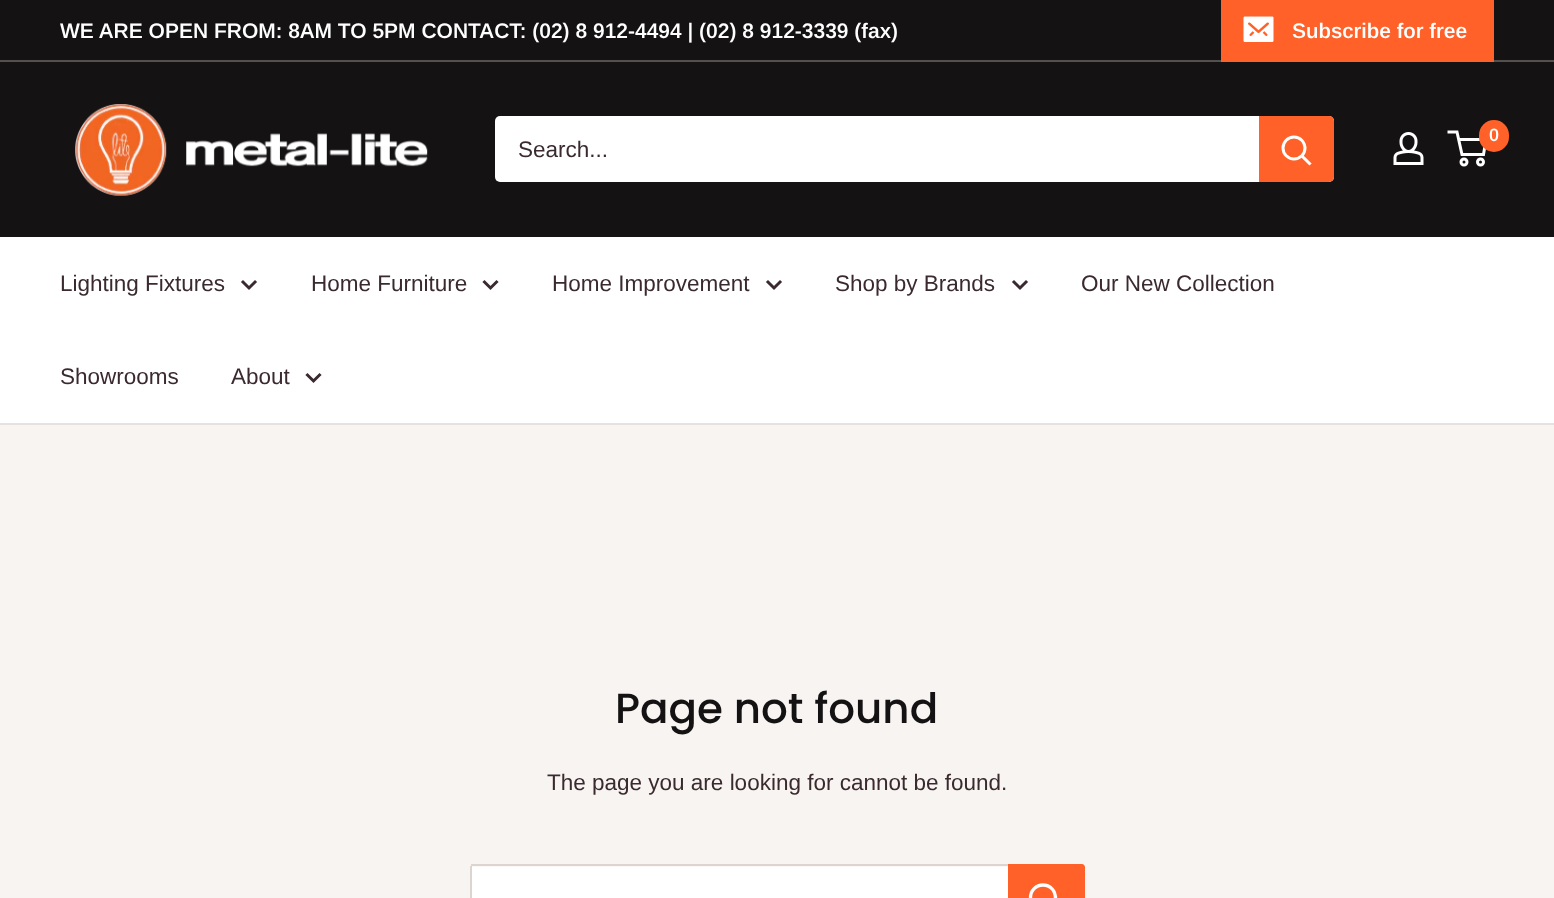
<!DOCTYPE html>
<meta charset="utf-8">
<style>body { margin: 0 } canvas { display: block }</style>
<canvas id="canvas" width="1554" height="898"></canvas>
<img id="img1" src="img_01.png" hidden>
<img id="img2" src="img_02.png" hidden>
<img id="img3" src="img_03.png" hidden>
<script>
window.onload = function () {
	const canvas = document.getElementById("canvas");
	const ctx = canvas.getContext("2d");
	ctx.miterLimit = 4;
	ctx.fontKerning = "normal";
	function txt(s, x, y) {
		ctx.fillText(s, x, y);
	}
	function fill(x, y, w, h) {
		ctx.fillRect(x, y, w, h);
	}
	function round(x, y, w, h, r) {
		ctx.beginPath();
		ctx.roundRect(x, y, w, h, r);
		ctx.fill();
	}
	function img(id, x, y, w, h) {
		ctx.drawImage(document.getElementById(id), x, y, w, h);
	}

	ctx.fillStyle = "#F7F4F2";
	fill(0, 0, 1554, 898);
	ctx.fillStyle = "#141213";
	fill(0, 0, 1554, 60);
	ctx.fillStyle = "#545050";
	fill(0, 60, 1554, 2);
	ctx.fillStyle = "#FF6128";
	fill(1221, 0, 273, 62);
	img("img1", 1243, 16, 31, 26);
	ctx.fillStyle = "#141213";
	fill(0, 62, 1554, 175);
	img("img2", 75, 104, 353, 92);
	img("img3", 1393, 132, 31, 33);
	ctx.beginPath();
	ctx.arc(1464, 162, 3, 0, Math.PI * 2);
	ctx.strokeStyle = "#FFFFFF";
	ctx.lineWidth = 3;
	ctx.stroke();
	ctx.beginPath();
	ctx.arc(1480.5, 162, 3, 0, Math.PI * 2);
	ctx.stroke();
	ctx.beginPath();
	ctx.moveTo(1458.5, 139.5);
	ctx.lineTo(1486, 139.5);
	ctx.lineTo(1483.5, 154.5);
	ctx.lineTo(1462, 154.5);
	ctx.lineTo(1457, 132);
	ctx.lineTo(1447.5, 132);
	ctx.stroke();
	ctx.fillStyle = "#FF6128";
	round(1479, 120, 30, 32, 15);
	ctx.fillStyle = "#FFFFFF";
	round(495, 116, 839, 66, 5);
	ctx.fillStyle = "#FF6128";
	ctx.beginPath();
	ctx.roundRect(1259, 116, 75, 66, [0, 5, 5, 0]);
	ctx.fill();
	ctx.beginPath();
	ctx.moveTo(1309.5, 163.5);
	ctx.lineTo(1302, 156);
	ctx.lineCap = "square";
	ctx.stroke();
	ctx.beginPath();
	ctx.arc(1294, 148, 11, 0, Math.PI * 2);
	ctx.stroke();
	ctx.fillStyle = "#FFFFFF";
	fill(0, 237, 1554, 186);
	ctx.fillStyle = "#E7E2DE";
	fill(0, 423, 1554, 2);
	ctx.beginPath();
	ctx.moveTo(255, 282);
	ctx.lineTo(249, 288);
	ctx.lineTo(243, 282);
	ctx.strokeStyle = "#3A2A2F";
	ctx.stroke();
	ctx.beginPath();
	ctx.moveTo(496.5, 282);
	ctx.lineTo(490.5, 288);
	ctx.lineTo(484.5, 282);
	ctx.stroke();
	ctx.beginPath();
	ctx.moveTo(780, 282);
	ctx.lineTo(774, 288);
	ctx.lineTo(768, 282);
	ctx.stroke();
	ctx.beginPath();
	ctx.moveTo(1026, 282);
	ctx.lineTo(1020, 288);
	ctx.lineTo(1014, 282);
	ctx.stroke();
	ctx.beginPath();
	ctx.moveTo(319.5, 375);
	ctx.lineTo(313.5, 381);
	ctx.lineTo(307.5, 375);
	ctx.stroke();
	ctx.fillStyle = "#FFFFFF";
	ctx.beginPath();
	ctx.moveTo(473, 864);
	ctx.lineTo(1008, 864);
	ctx.lineTo(1008, 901);
	ctx.lineTo(473, 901);
	ctx.bezierCurveTo(471.5, 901, 470, 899.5, 470, 898);
	ctx.lineTo(470, 867);
	ctx.bezierCurveTo(470, 865.5, 471.5, 864, 473, 864);
	ctx.closePath();
	ctx.fill();
	ctx.fillStyle = "#F9F8F7";
	ctx.beginPath();
	ctx.moveTo(472, 867);
	ctx.lineTo(1008, 867);
	ctx.lineTo(1008, 866);
	ctx.lineTo(472, 866);
	ctx.bezierCurveTo(471, 866, 471, 867, 471, 868);
	ctx.closePath();
	ctx.fill();
	ctx.fillStyle = "#DCD5CF";
	fill(471, 864, 537, 2);
	fill(470, 866, 2, 32);
	ctx.fillStyle = "#FF6128";
	ctx.beginPath();
	ctx.moveTo(1008, 864);
	ctx.lineTo(1082, 864);
	ctx.bezierCurveTo(1083.5, 864, 1085, 865.5, 1085, 867);
	ctx.lineTo(1085, 898);
	ctx.bezierCurveTo(1085, 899.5, 1083.5, 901, 1082, 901);
	ctx.lineTo(1008, 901);
	ctx.closePath();
	ctx.fill();
	ctx.beginPath();
	ctx.arc(1043, 897.5, 12.5, 0, Math.PI * 2);
	ctx.strokeStyle = "#FFFFFF";
	ctx.lineWidth = 3.3;
	ctx.stroke();
	ctx.font = "600 21px Arimo";
	ctx.fillStyle = "#FFFFFF";
	txt("WE ARE OPEN FROM: 8AM TO 5PM CONTACT: (02) 8 912-4494 | (02) 8 912-3339 (fax)", 60, 38);
	txt("Subscribe for free", 1292, 38);
	ctx.font = "600 18px Arimo";
	txt("0", 1489, 141);
	ctx.font = "22.5px Arimo";
	ctx.fillStyle = "#3A2A2F";
	txt("Search...", 518, 157);
	txt("Lighting Fixtures", 60, 291);
	txt("Home Furniture", 311, 291);
	txt("Home Improvement", 552, 291);
	txt("Shop by Brands", 835, 291);
	txt("Our New Collection", 1081, 291);
	txt("Showrooms", 60, 384);
	txt("About", 231, 384);
	ctx.font = "500 42px Poppins";
	ctx.fillStyle = "#141213";
	txt("Page not found", 615, 723);
	ctx.font = "22.5px Arimo";
	ctx.fillStyle = "#3A2A2F";
	txt("The page you are looking for cannot be found.", 547, 790);
};
</script>
